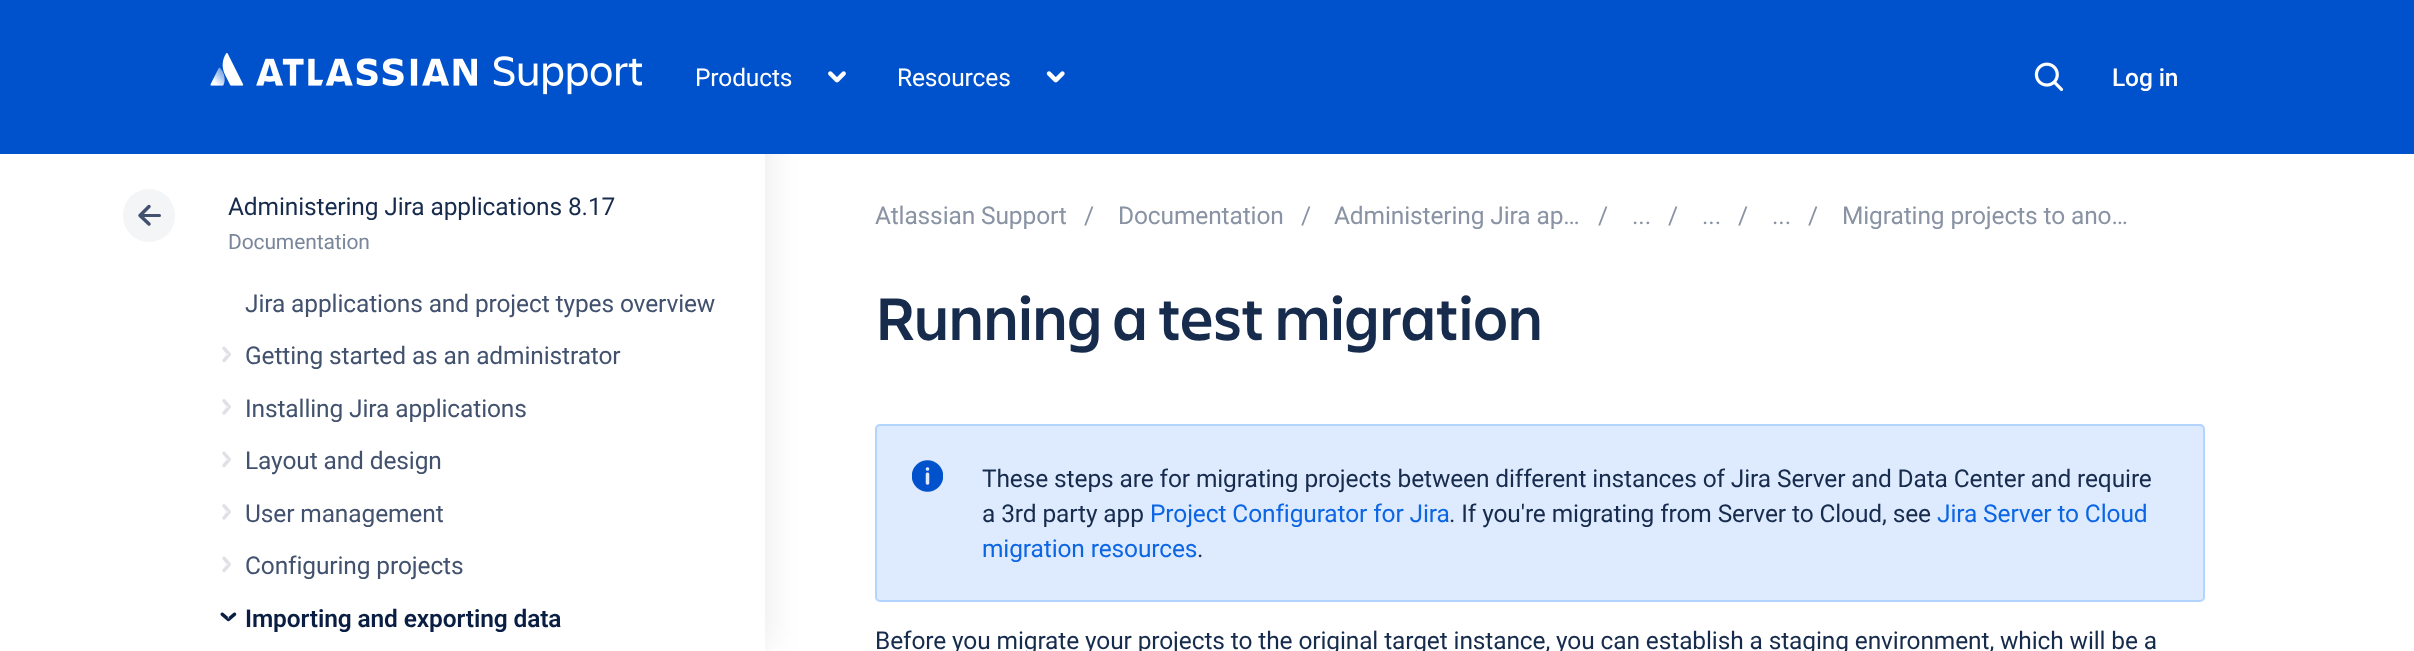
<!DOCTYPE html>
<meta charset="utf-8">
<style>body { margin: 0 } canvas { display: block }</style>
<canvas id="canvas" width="2414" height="651"></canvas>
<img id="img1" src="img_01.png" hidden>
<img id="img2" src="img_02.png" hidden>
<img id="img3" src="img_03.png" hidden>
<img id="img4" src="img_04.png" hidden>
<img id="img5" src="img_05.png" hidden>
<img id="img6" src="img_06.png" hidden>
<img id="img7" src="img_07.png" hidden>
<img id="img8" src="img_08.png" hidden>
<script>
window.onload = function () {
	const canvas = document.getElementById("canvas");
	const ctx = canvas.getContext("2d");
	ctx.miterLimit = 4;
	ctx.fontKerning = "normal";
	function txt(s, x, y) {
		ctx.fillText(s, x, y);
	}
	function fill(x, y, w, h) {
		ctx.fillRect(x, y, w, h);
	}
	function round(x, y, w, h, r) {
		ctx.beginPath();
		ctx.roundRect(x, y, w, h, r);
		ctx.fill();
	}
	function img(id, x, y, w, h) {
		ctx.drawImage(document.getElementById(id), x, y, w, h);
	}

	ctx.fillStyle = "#FFFFFF";
	fill(0, 0, 2414, 651);
	ctx.fillStyle = "rgba(22, 22, 22, 0.1)";
	ctx.filter = "blur(17.5px)";
	ctx.beginPath();
	ctx.rect(0, 0, 765, 651);
	ctx.fill();
	ctx.filter = "none";
	ctx.fillStyle = "#0052CC";
	fill(0, 0, 2414, 154);
	img("img1", 210, 53, 432, 42);
	img("img2", 828, 71, 18, 12);
	img("img3", 1046, 71, 19, 12);
	img("img4", 2034, 62, 30, 30);
	ctx.fillStyle = "#FFFFFF";
	fill(0, 154, 765, 497);
	ctx.fillStyle = "#F4F5F7";
	round(123, 189, 52, 53, 26);
	ctx.fillStyle = "#42526E";
	round(140, 214, 21, 3, 1.5);
	ctx.beginPath();
	ctx.moveTo(149, 224);
	ctx.lineTo(140, 215.5);
	ctx.lineTo(149, 206.5);
	ctx.strokeStyle = "#42526E";
	ctx.lineWidth = 3.5;
	ctx.lineCap = "round";
	ctx.lineJoin = "round";
	ctx.stroke();
	img("img5", 222, 346, 9, 17);
	img("img6", 222, 399, 9, 16);
	img("img5", 222, 451, 9, 17);
	img("img6", 222, 504, 9, 16);
	img("img5", 222, 556, 9, 17);
	img("img7", 220, 612, 17, 10);
	ctx.fillStyle = "#DEEBFF";
	ctx.beginPath();
	ctx.roundRect(876, 425, 1328, 176, 4);
	ctx.fill();
	ctx.strokeStyle = "#B3D4FF";
	ctx.lineWidth = 2;
	ctx.lineJoin = "miter";
	ctx.stroke();
	img("img8", 912, 460, 31, 32);
	ctx.letterSpacing = "-0.12px";
	ctx.font = "24.5px Roboto";
	ctx.fillStyle = "#FFFFFF";
	txt("Products", 695, 86);
	txt("Resources", 897, 86);
	ctx.font = "500 24.5px Roboto";
	txt("Log in", 2112, 86);
	ctx.font = "24.5px Roboto";
	ctx.fillStyle = "#172B4D";
	txt("Administering Jira applications 8.17", 228, 215);
	ctx.font = "21px Roboto";
	ctx.fillStyle = "#7A869A";
	txt("Documentation", 228, 249);
	ctx.font = "24.5px Roboto";
	ctx.fillStyle = "#42526E";
	txt("Jira applications and project types overview", 245, 312);
	txt("Getting started as an administrator", 245, 364);
	txt("Installing Jira applications", 245, 417);
	txt("Layout and design", 245, 469);
	txt("User management", 245, 522);
	txt("Configuring projects", 245, 574);
	ctx.font = "600 24.5px Roboto";
	ctx.fillStyle = "#091E42";
	txt("Importing and exporting data", 245, 627);
	ctx.font = "24.5px Roboto";
	ctx.fillStyle = "#8993A4";
	txt("Atlassian Support", 875, 224);
	txt("/", 1084, 224);
	txt("Documentation", 1118, 224);
	txt("/", 1301, 224);
	txt("Administering Jira ap…", 1334, 224);
	txt("/", 1598, 224);
	txt("...", 1632, 224);
	txt("/", 1668, 224);
	txt("...", 1702, 224);
	txt("/", 1738, 224);
	txt("...", 1772, 224);
	txt("/", 1808, 224);
	txt("Migrating projects to ano…", 1842, 224);
	ctx.letterSpacing = "0px";
	ctx.font = "600 63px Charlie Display";
	ctx.fillStyle = "#172B4D";
	txt("Running a test migration", 875, 340);
	ctx.letterSpacing = "-0.12px";
	ctx.font = "24.5px Roboto";
	txt("These steps are for migrating projects between different instances of Jira Server and Data Center and require", 982, 487);
	txt("a 3rd party app", 982, 522);
	ctx.fillStyle = "#0C66E4";
	txt("Project Configurator for Jira", 1150, 522);
	ctx.fillStyle = "#172B4D";
	txt(". If you're migrating from Server to Cloud, see", 1449, 522);
	ctx.fillStyle = "#0C66E4";
	txt("Jira Server to Cloud", 1937, 522);
	txt("migration resources", 982, 557);
	ctx.fillStyle = "#172B4D";
	txt(".", 1197, 557);
	txt("Before you migrate your projects to the original target instance, you can establish a staging environment, which will be a", 875, 649);
};
</script>
